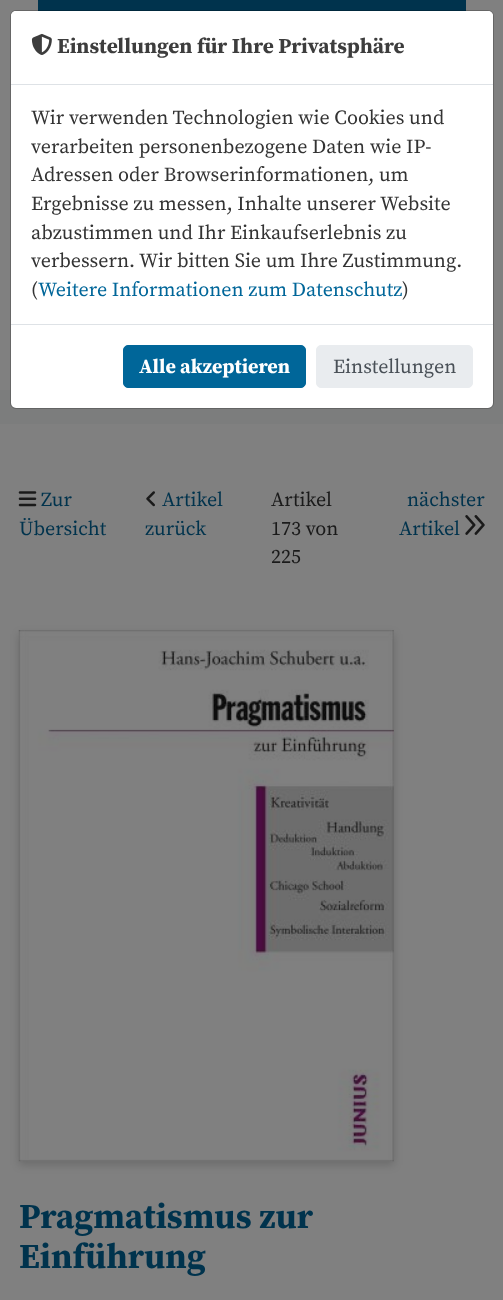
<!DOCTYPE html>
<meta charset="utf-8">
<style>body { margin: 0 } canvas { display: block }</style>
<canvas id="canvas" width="503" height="1300"></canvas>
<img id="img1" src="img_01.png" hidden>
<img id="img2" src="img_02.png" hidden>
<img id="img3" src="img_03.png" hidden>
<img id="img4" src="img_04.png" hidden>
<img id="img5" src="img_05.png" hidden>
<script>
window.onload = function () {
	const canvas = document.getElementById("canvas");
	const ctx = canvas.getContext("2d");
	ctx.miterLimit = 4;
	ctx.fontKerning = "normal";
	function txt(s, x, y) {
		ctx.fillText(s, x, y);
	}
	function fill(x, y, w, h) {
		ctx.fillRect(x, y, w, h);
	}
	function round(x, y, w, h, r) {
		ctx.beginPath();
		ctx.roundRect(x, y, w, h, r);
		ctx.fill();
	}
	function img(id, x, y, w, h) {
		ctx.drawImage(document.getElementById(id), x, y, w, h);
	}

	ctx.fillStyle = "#808080";
	fill(0, 0, 503, 1300);
	ctx.fillStyle = "#00334D";
	fill(38, 0, 428, 11);
	ctx.fillStyle = "#7C7D7D";
	fill(0, 390, 503, 34);
	ctx.fillStyle = "#FFFFFF";
	round(11, 11, 482, 397, 5);
	ctx.beginPath();
	ctx.roundRect(10.5, 10.5, 483, 398, 5.5);
	ctx.strokeStyle = "rgba(0, 0, 0, 0.2)";
	ctx.stroke();
	ctx.beginPath();
	ctx.roundRect(11, 11, 482, 74, [5, 5, 0, 0]);
	ctx.fill();
	ctx.fillStyle = "#DEE2E6";
	fill(11, 84, 482, 1);
	img("img1", 31, 33, 21, 22);
	fill(11, 324, 482, 1);
	ctx.fillStyle = "#006699";
	ctx.beginPath();
	ctx.roundRect(123.5, 345.5, 182, 42, 4.5);
	ctx.fill();
	ctx.strokeStyle = "#006699";
	ctx.stroke();
	ctx.fillStyle = "#E9ECEF";
	ctx.beginPath();
	ctx.roundRect(316.5, 345.5, 156, 42, 4.5);
	ctx.fill();
	ctx.strokeStyle = "#E9ECEF";
	ctx.stroke();
	img("img2", 18, 491, 19, 16);
	img("img3", 146, 491, 9, 16);
	img("img4", 465, 515, 20, 20);
	ctx.fillStyle = "rgba(0, 0, 0, 0.16)";
	ctx.filter = "blur(4px)";
	ctx.beginPath();
	ctx.rect(19, 634, 375, 531);
	ctx.fill();
	ctx.filter = "none";
	img("img5", 18, 630, 376, 532);
	ctx.font = "bold 21.25px Source Serif Pro";
	ctx.fillStyle = "#3D3D3D";
	txt("Einstellungen für Ihre Privatsphäre", 57, 53);
	ctx.font = "20px Source Serif Pro";
	ctx.fillStyle = "#333333";
	txt("Wir verwenden Technologien wie Cookies und", 31, 124);
	txt("verarbeiten personenbezogene Daten wie IP-", 31, 153);
	txt("Adressen oder Browserinformationen, um", 31, 181);
	txt("Ergebnisse zu messen, Inhalte unserer Website", 31, 210);
	txt("abzustimmen und Ihr Einkaufserlebnis zu", 31, 239);
	txt("verbessern. Wir bitten Sie um Ihre Zustimmung.", 31, 267);
	txt("(", 31, 296);
	ctx.fillStyle = "#006699";
	txt("Weitere Informationen zum Datenschutz", 38, 296);
	ctx.fillStyle = "#333333";
	txt(")", 402, 296);
	ctx.font = "bold 20px Source Serif Pro";
	ctx.fillStyle = "#FFFFFF";
	txt("Alle akzeptieren", 139, 373);
	ctx.font = "20px Source Serif Pro";
	ctx.fillStyle = "#495057";
	txt("Einstellungen", 333, 373);
	ctx.fillStyle = "#00334D";
	txt("Zur", 41, 506);
	txt("Übersicht", 19, 535);
	txt("Artikel", 162, 506);
	txt("zurück", 145, 535);
	ctx.fillStyle = "#1A1A1A";
	txt("Artikel", 271, 506);
	txt("173 von", 271, 535);
	txt("225", 271, 563);
	ctx.fillStyle = "#00334D";
	txt("nächster", 407, 506);
	txt("Artikel", 399, 535);
	ctx.font = "bold 35px Source Serif Pro";
	txt("Pragmatismus zur", 19, 1228);
	txt("Einführung", 19, 1268);
};
</script>
